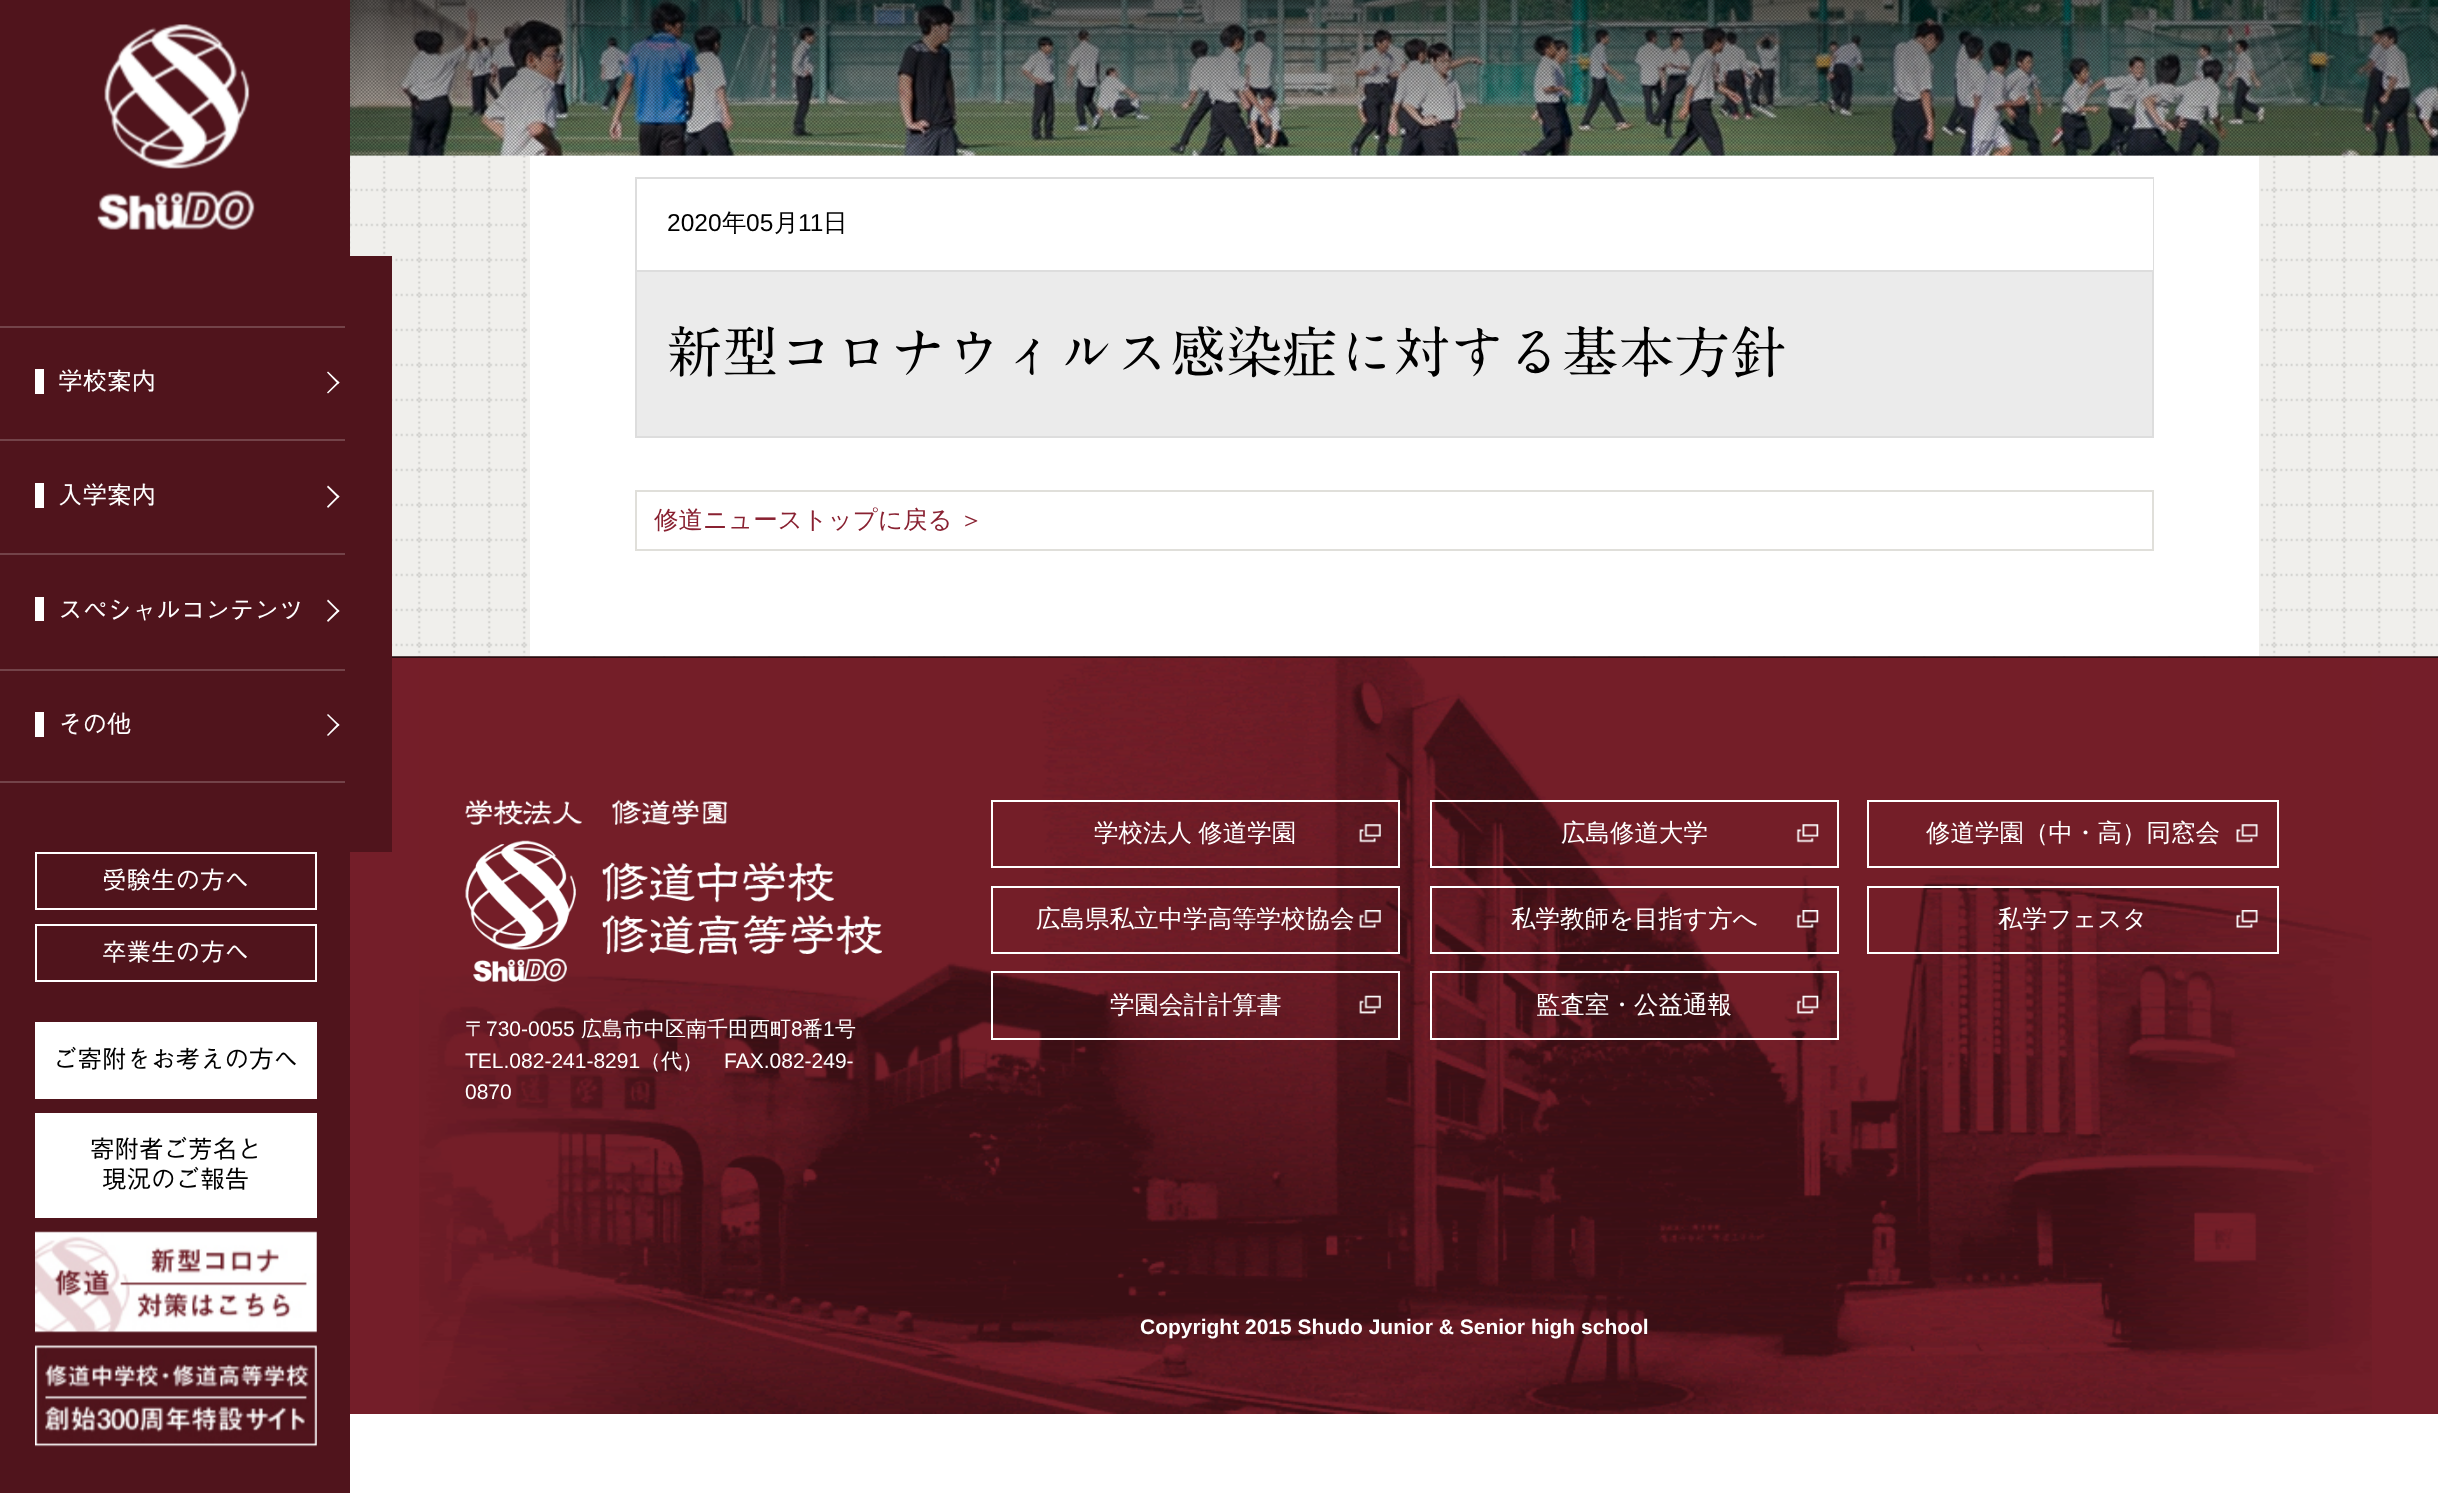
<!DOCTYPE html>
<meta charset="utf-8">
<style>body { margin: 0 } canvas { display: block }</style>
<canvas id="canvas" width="2438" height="1494"></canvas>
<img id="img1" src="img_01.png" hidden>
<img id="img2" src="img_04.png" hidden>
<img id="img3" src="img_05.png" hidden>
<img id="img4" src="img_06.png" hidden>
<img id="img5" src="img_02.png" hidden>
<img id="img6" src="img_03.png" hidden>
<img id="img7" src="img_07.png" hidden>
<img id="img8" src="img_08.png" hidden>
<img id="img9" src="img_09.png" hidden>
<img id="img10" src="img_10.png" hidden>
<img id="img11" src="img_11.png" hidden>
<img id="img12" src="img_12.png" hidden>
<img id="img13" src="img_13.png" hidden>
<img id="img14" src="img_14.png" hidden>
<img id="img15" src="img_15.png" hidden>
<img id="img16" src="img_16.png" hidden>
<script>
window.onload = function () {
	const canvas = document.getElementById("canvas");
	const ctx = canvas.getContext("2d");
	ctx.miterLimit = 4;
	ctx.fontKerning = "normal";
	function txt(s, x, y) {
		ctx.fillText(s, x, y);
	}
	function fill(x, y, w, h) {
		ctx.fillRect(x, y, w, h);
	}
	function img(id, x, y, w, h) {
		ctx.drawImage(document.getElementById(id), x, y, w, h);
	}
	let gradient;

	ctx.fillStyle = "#FFFFFF";
	fill(0, 0, 2438, 1494);
	ctx.fillStyle = "#50141C";
	fill(0, 0, 350, 1493);
	img("img1", 97, 24, 158, 206);
	img("img2", 350, 0, 2088, 156);
	img("img3", 350, 0, 2088, 156);
	ctx.fillStyle = "#280B0F";
	fill(392, 656, 2046, 2);
	img("img4", 350, 155, 2088, 502);
	ctx.fillStyle = "#741E29";
	fill(350, 658, 2088, 756);
	ctx.fillStyle = "#50141C";
	fill(350, 256, 42, 596);
	ctx.fillStyle = "#734349";
	fill(0, 326, 345, 2);
	ctx.fillStyle = "#FFFFFF";
	fill(35, 369, 9, 25);
	ctx.beginPath();
	ctx.moveTo(328, 371.5);
	ctx.lineTo(339.5, 382.5);
	ctx.lineTo(338, 384);
	ctx.lineTo(327, 372.5);
	ctx.closePath();
	ctx.fill();
	ctx.beginPath();
	ctx.moveTo(338, 381.5);
	ctx.lineTo(339.5, 382.5);
	ctx.lineTo(328, 393.5);
	ctx.lineTo(327, 392.5);
	ctx.closePath();
	ctx.fill();
	ctx.fillStyle = "#734349";
	fill(0, 439, 345, 2);
	ctx.fillStyle = "#FFFFFF";
	fill(35, 483, 9, 25);
	ctx.beginPath();
	ctx.moveTo(328, 485.5);
	ctx.lineTo(339.5, 496.5);
	ctx.lineTo(338, 498);
	ctx.lineTo(327, 487);
	ctx.closePath();
	ctx.fill();
	ctx.beginPath();
	ctx.moveTo(338, 495.5);
	ctx.lineTo(339.5, 496.5);
	ctx.lineTo(328, 508);
	ctx.lineTo(327, 506.5);
	ctx.closePath();
	ctx.fill();
	ctx.fillStyle = "#734349";
	fill(0, 553, 345, 2);
	ctx.fillStyle = "#FFFFFF";
	fill(35, 597, 9, 24);
	ctx.beginPath();
	ctx.moveTo(328, 599.5);
	ctx.lineTo(339.5, 611);
	ctx.lineTo(338, 612);
	ctx.lineTo(327, 601);
	ctx.closePath();
	ctx.fill();
	ctx.beginPath();
	ctx.moveTo(338, 609.5);
	ctx.lineTo(339.5, 611);
	ctx.lineTo(328, 622);
	ctx.lineTo(327, 620.5);
	ctx.closePath();
	ctx.fill();
	ctx.fillStyle = "#734349";
	fill(0, 669, 345, 2);
	ctx.fillStyle = "#FFFFFF";
	fill(35, 712, 9, 25);
	ctx.beginPath();
	ctx.moveTo(328, 714);
	ctx.lineTo(339.5, 725);
	ctx.lineTo(338, 726);
	ctx.lineTo(327, 715);
	ctx.closePath();
	ctx.fill();
	ctx.beginPath();
	ctx.moveTo(338, 723.5);
	ctx.lineTo(339.5, 725);
	ctx.lineTo(328, 736);
	ctx.lineTo(327, 735);
	ctx.closePath();
	ctx.fill();
	ctx.fillStyle = "#734349";
	fill(0, 781, 345, 2);
	ctx.strokeStyle = "#FFFFFF";
	ctx.lineWidth = 2;
	ctx.strokeRect(36, 853, 280, 56);
	ctx.strokeRect(36, 925, 280, 56);
	ctx.fillStyle = "#FFFFFF";
	fill(35, 1022, 282, 77);
	fill(35, 1113, 282, 105);
	img("img5", 35, 1231, 282, 102);
	img("img6", 35, 1345, 282, 102);
	gradient = ctx.createLinearGradient(1395, -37, 1395, 142);
	gradient.addColorStop(0, "rgba(0, 0, 0, 0.65)");
	gradient.addColorStop(1, "rgba(0, 0, 0, 0)");
	ctx.fillStyle = gradient;
	fill(350, 0, 2088, 136);
	ctx.fillStyle = "#FFFFFF";
	fill(530, 156, 1729, 500);
	ctx.fillStyle = "#EBEBEB";
	fill(637, 272, 1515, 164);
	ctx.strokeStyle = "#DDDDDD";
	ctx.strokeRect(636, 178, 1517, 259);
	ctx.fillStyle = "#FFFFFF";
	fill(2152, 179, 1, 91);
	ctx.fillStyle = "#DDDDDD";
	fill(637, 270, 1516, 2);
	ctx.strokeStyle = "#E0DFDA";
	ctx.strokeRect(636, 491, 1517, 59);
	img("img7", 419, 658, 1953, 756);
	ctx.strokeStyle = "#FFFFFF";
	ctx.strokeRect(992, 801, 407, 66);
	img("img8", 1359, 824, 22, 19);
	ctx.strokeRect(1431, 801, 407, 66);
	img("img9", 1796, 824, 23, 19);
	ctx.strokeRect(1868, 801, 410, 66);
	img("img10", 2236, 824, 22, 19);
	ctx.strokeRect(992, 887, 407, 66);
	img("img11", 1359, 910, 22, 18);
	ctx.strokeRect(1431, 887, 407, 66);
	img("img12", 1796, 910, 23, 18);
	ctx.strokeRect(1868, 887, 410, 66);
	img("img13", 2236, 910, 22, 18);
	ctx.strokeRect(992, 972, 407, 67);
	img("img14", 1359, 995, 22, 19);
	ctx.strokeRect(1431, 972, 407, 67);
	img("img15", 1796, 995, 23, 19);
	img("img16", 465, 799, 417, 183);
	ctx.font = "24.5px 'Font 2'";
	ctx.fillStyle = "#FFFFFF";
	txt("学校案内", 58, 390);
	txt("入学案内", 58, 504);
	txt("スぺシャルコンテンツ", 58, 619);
	txt("その他", 58, 733);
	txt("受験生の方へ", 102, 889);
	txt("卒業生の方へ", 102, 961);
	ctx.fillStyle = "#000000";
	txt("ご寄附をお考えの方へ", 53, 1068);
	txt("寄附者ご芳名と", 90, 1158);
	txt("現況のご報告", 102, 1188);
	ctx.font = "24.5px Liberation Sans";
	txt("2020", 667, 231);
	ctx.font = "500 24.5px WenQuanYi Zen Hei";
	txt("年", 722, 231);
	ctx.font = "24.5px Liberation Sans";
	txt("05", 746, 231);
	ctx.font = "500 24.5px WenQuanYi Zen Hei";
	txt("月", 774, 231);
	ctx.font = "24.5px Liberation Sans";
	txt("11", 798, 231);
	ctx.font = "500 24.5px WenQuanYi Zen Hei";
	txt("日", 823, 231);
	ctx.font = "56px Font";
	txt("新型コロナウィルス感染症に対する基本方針", 666, 373);
	ctx.wordSpacing = "-1px";
	ctx.font = "500 24.5px WenQuanYi Zen Hei";
	ctx.fillStyle = "#892131";
	txt("修道ニューストップに戻る ＞", 654, 528);
	ctx.fillStyle = "#FFFFFF";
	txt("学校法人 修道学園", 1094, 841);
	ctx.wordSpacing = "0px";
	txt("広島修道大学", 1561, 841);
	txt("修道学園（中・高）同窓会", 1926, 841);
	txt("広島県私立中学高等学校協会", 1036, 927);
	txt("私学教師を目指す方へ", 1511, 927);
	txt("私学フェスタ", 1998, 927);
	txt("学園会計計算書", 1110, 1013);
	txt("監査室・公益通報", 1536, 1013);
	ctx.font = "500 21px WenQuanYi Zen Hei";
	txt("〒", 465, 1036);
	ctx.font = "21px Liberation Sans";
	txt("730-0055", 486, 1036);
	ctx.font = "500 21px WenQuanYi Zen Hei";
	txt("広島市中区南千田西町", 581, 1036);
	ctx.font = "21px Liberation Sans";
	txt("8", 791, 1036);
	ctx.font = "500 21px WenQuanYi Zen Hei";
	txt("番", 802, 1036);
	ctx.font = "21px Liberation Sans";
	txt("1", 823, 1036);
	ctx.font = "500 21px WenQuanYi Zen Hei";
	txt("号", 835, 1036);
	ctx.font = "21px Liberation Sans";
	txt("TEL.082-241-8291", 465, 1068);
	ctx.font = "500 21px WenQuanYi Zen Hei";
	txt("（代）", 640, 1068);
	ctx.font = "21px Liberation Sans";
	txt("FAX.082-249-", 724, 1068);
	txt("0870", 465, 1099);
	ctx.font = "bold 21px Liberation Sans";
	txt("Copyright 2015 Shudo Junior & Senior high school", 1140, 1334);
};
</script>
